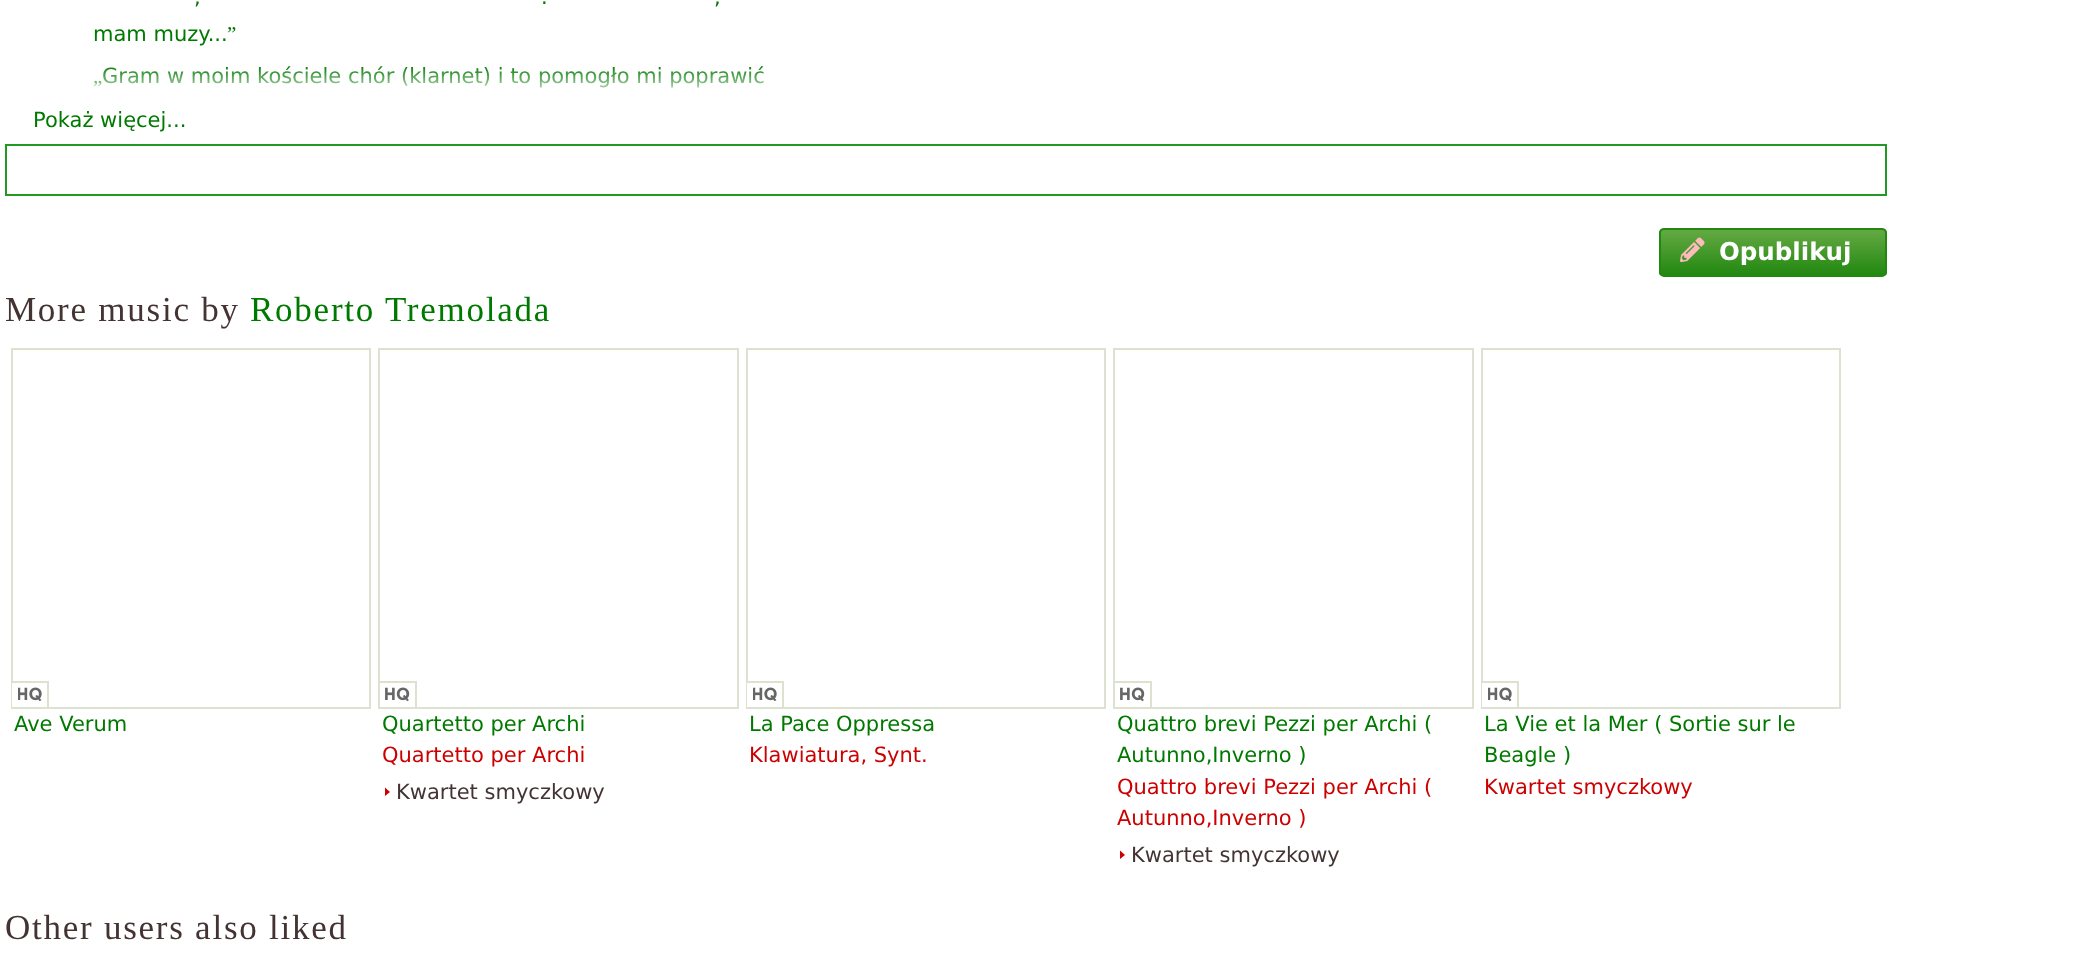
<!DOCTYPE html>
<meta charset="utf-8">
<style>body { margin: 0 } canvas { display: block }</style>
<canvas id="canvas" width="2099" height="963"></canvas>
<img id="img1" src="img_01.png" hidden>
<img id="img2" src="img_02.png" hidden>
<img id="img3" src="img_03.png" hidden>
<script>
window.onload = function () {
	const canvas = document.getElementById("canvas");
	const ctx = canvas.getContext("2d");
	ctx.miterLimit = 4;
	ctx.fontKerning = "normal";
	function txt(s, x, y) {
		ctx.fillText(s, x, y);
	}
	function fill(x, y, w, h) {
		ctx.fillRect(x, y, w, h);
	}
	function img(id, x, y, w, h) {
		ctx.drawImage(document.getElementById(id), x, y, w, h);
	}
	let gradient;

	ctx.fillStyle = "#FFFFFF";
	fill(0, 0, 2099, 963);
	ctx.strokeStyle = "#229922";
	ctx.lineWidth = 2;
	ctx.strokeRect(6, 145, 1880, 50);
	ctx.save();
	ctx.beginPath();
	ctx.roundRect(1659, 228, 228, 49, 5);
	ctx.clip();
	gradient = ctx.createLinearGradient(1773, 229, 1773, 275);
	gradient.addColorStop(0, "#66AA44");
	gradient.addColorStop(1, "#228811");
	ctx.fillStyle = gradient;
	fill(1659, 229, 228, 46);
	ctx.restore();
	ctx.beginPath();
	ctx.roundRect(1660, 229, 226, 47, 4);
	ctx.strokeStyle = "#228811";
	ctx.stroke();
	img("img1", 1680, 237, 25, 26);
	ctx.strokeStyle = "#DCE2CF";
	ctx.strokeRect(12, 349, 358, 359);
	fill(12, 683, 1, 24);
	ctx.fillStyle = "#DCE2CF";
	fill(12, 681, 37, 2);
	fill(47, 681, 2, 26);
	img("img2", 18, 687, 24, 15);
	ctx.strokeRect(379, 349, 359, 359);
	fill(380, 681, 37, 2);
	fill(415, 681, 2, 26);
	img("img3", 385, 687, 25, 15);
	ctx.fillStyle = "#CC0000";
	ctx.beginPath();
	ctx.moveTo(385, 787.5);
	ctx.lineTo(390, 792);
	ctx.lineTo(385, 796);
	ctx.closePath();
	ctx.fill();
	ctx.strokeRect(747, 349, 358, 359);
	ctx.fillStyle = "#FFFFFF";
	fill(747, 683, 1, 24);
	ctx.fillStyle = "#DCE2CF";
	fill(747, 681, 37, 2);
	fill(782, 681, 2, 26);
	img("img2", 753, 687, 24, 15);
	ctx.strokeRect(1114, 349, 359, 359);
	fill(1115, 681, 37, 2);
	fill(1150, 681, 2, 26);
	img("img3", 1120, 687, 25, 15);
	ctx.fillStyle = "#CC0000";
	ctx.beginPath();
	ctx.moveTo(1120, 850.5);
	ctx.lineTo(1125, 855);
	ctx.lineTo(1120, 859);
	ctx.closePath();
	ctx.fill();
	ctx.strokeRect(1482, 349, 358, 359);
	ctx.fillStyle = "#FFFFFF";
	fill(1482, 683, 1, 24);
	ctx.fillStyle = "#DCE2CF";
	fill(1482, 681, 37, 2);
	fill(1517, 681, 2, 26);
	img("img2", 1488, 687, 24, 15);
	ctx.font = "21px DejaVu Sans";
	ctx.fillStyle = "#007900";
	txt(",", 194, 4);
	txt(".", 541, 4);
	txt(",", 714, 4);
	txt("mam muzy...", 93, 41);
	ctx.font = "21px Liberation Serif";
	txt("”", 227, 41);
	txt("„", 93, 83);
	ctx.font = "21px DejaVu Sans";
	txt("Gram w moim kościele chór (klarnet) i to pomogło mi poprawić", 102, 83);
	gradient = ctx.createLinearGradient(396, 65, 396, 135);
	gradient.addColorStop(0, "rgba(255, 255, 255, 0)");
	gradient.addColorStop(0.5, "#FFFFFF");
	ctx.fillStyle = gradient;
	fill(93, 66, 671, 22);
	ctx.fillStyle = "#007900";
	txt("Pokaż więcej...", 33, 127);
	ctx.font = "bold 24.5px DejaVu Sans";
	ctx.fillStyle = "#FFFFFF";
	txt("Opublikuj", 1719, 260);
	ctx.letterSpacing = "1.75px";
	ctx.font = "35px Liberation Serif";
	ctx.fillStyle = "#443333";
	txt("More music by", 5, 321);
	ctx.fillStyle = "#007900";
	txt("Roberto Tremolada", 250, 321);
	ctx.letterSpacing = "0px";
	ctx.font = "21px DejaVu Sans";
	txt("Ave Verum", 14, 731);
	txt("Quartetto per Archi", 382, 731);
	ctx.fillStyle = "#CC0000";
	txt("Quartetto per Archi", 382, 762);
	ctx.fillStyle = "#443333";
	txt("Kwartet smyczkowy", 396, 799);
	ctx.fillStyle = "#007900";
	txt("La Pace Oppressa", 749, 731);
	ctx.fillStyle = "#CC0000";
	txt("Klawiatura, Synt.", 749, 762);
	ctx.fillStyle = "#007900";
	txt("Quattro brevi Pezzi per Archi (", 1117, 731);
	txt("Autunno,Inverno )", 1117, 762);
	ctx.fillStyle = "#CC0000";
	txt("Quattro brevi Pezzi per Archi (", 1117, 794);
	txt("Autunno,Inverno )", 1117, 825);
	ctx.fillStyle = "#443333";
	txt("Kwartet smyczkowy", 1131, 862);
	ctx.fillStyle = "#007900";
	txt("La Vie et la Mer ( Sortie sur le", 1484, 731);
	txt("Beagle )", 1484, 762);
	ctx.fillStyle = "#CC0000";
	txt("Kwartet smyczkowy", 1484, 794);
	ctx.letterSpacing = "1.75px";
	ctx.font = "35px Liberation Serif";
	ctx.fillStyle = "#443333";
	txt("Other users also liked", 5, 939);
};
</script>
